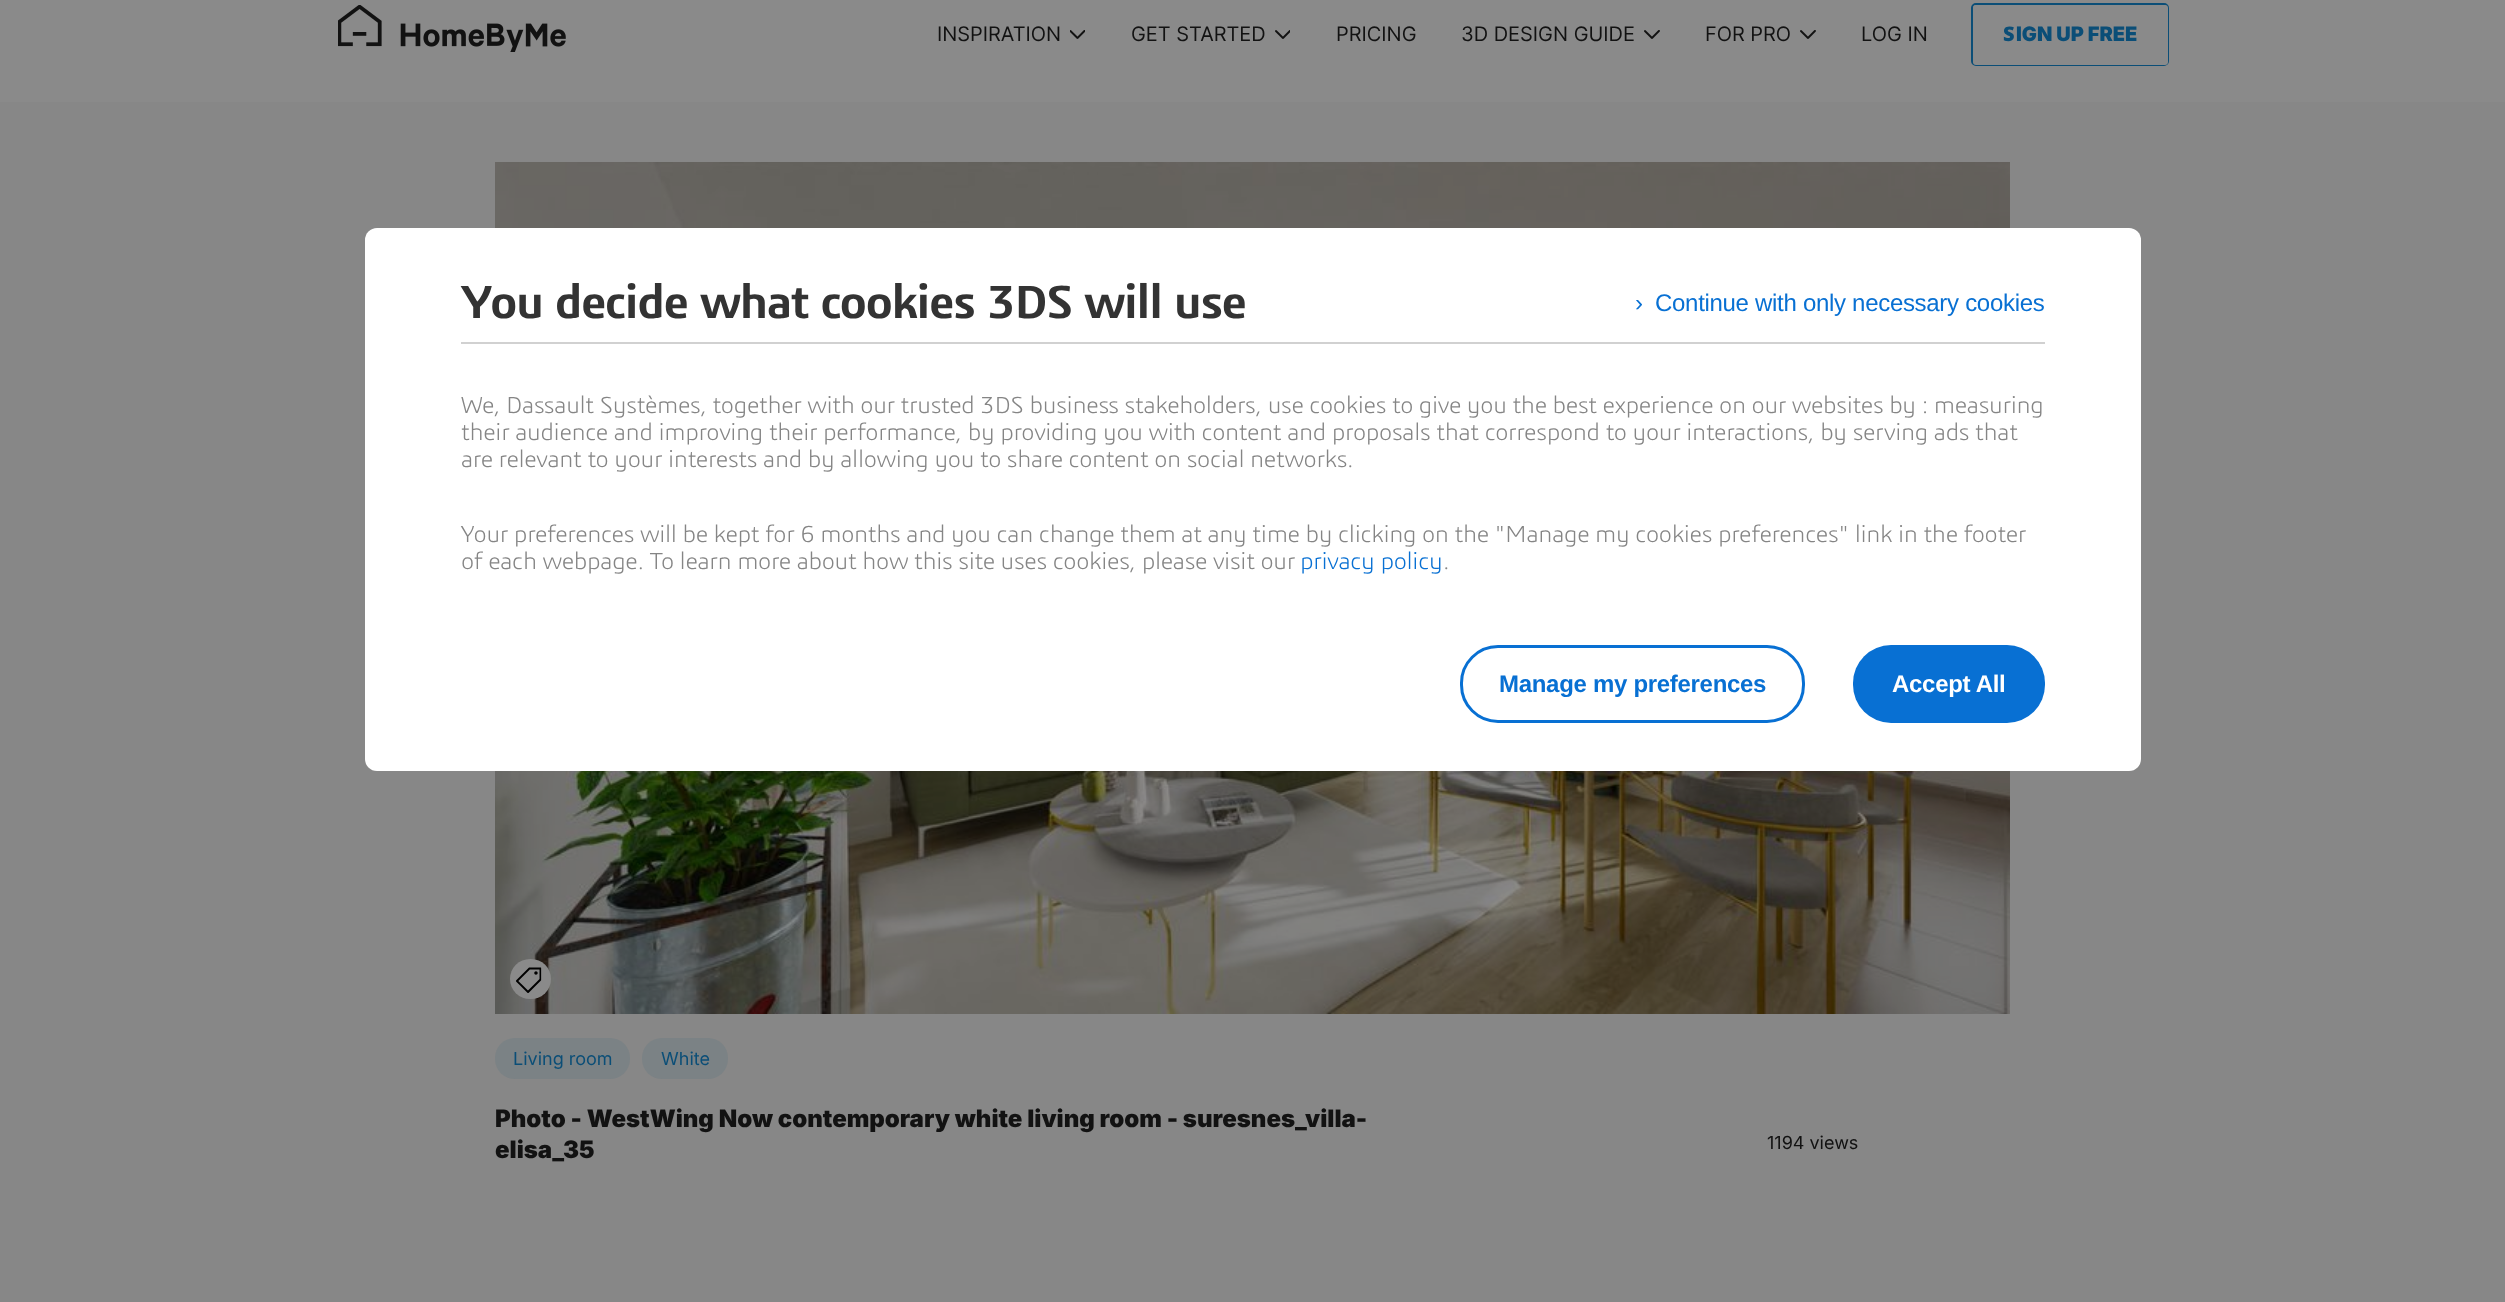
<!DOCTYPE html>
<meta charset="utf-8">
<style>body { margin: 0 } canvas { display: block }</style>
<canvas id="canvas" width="2505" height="1302"></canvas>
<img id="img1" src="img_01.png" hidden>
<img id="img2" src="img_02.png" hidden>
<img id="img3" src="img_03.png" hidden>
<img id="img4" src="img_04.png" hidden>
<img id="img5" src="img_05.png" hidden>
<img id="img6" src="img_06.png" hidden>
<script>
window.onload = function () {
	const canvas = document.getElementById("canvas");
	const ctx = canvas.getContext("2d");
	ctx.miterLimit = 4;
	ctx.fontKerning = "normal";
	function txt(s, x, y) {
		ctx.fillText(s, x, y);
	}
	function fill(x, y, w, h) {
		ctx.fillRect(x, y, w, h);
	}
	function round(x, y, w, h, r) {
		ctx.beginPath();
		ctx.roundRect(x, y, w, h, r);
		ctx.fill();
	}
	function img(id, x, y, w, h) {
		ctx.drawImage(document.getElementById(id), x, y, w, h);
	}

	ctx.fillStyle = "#8A8A8A";
	fill(0, 0, 2505, 1302);
	img("img1", 338, 5, 228, 47);
	img("img2", 1070, 30, 15, 9);
	img("img3", 1275, 30, 15, 9);
	img("img4", 1644, 30, 16, 9);
	img("img4", 1800, 30, 16, 9);
	ctx.beginPath();
	ctx.roundRect(1972, 4, 196, 61, 4);
	ctx.strokeStyle = "#0B4E77";
	ctx.lineWidth = 2;
	ctx.stroke();
	round(1973, 5, 195, 60, 3);
	ctx.fillStyle = "#878787";
	fill(0, 102, 2505, 1200);
	img("img5", 495, 162, 1515, 852);
	ctx.fillStyle = "#FFFFFF";
	ctx.beginPath();
	ctx.roundRect(365, 228, 1776, 395, [12, 12, 0, 0]);
	ctx.fill();
	ctx.fillStyle = "#D1D1D1";
	fill(461, 342, 1584, 2);
	ctx.fillStyle = "#FFFFFF";
	ctx.beginPath();
	ctx.roundRect(365, 623, 1776, 148, [0, 0, 12, 12]);
	ctx.fill();
	ctx.beginPath();
	ctx.roundRect(1461.5, 646.5, 342, 75, 36.5);
	ctx.strokeStyle = "#0870D3";
	ctx.lineWidth = 3;
	ctx.stroke();
	ctx.fillStyle = "#0870D3";
	round(1853, 645, 192, 78, 38);
	ctx.fillStyle = "#8A8A8A";
	round(510, 959, 41, 40, 20);
	img("img6", 516, 967, 26, 26);
	ctx.fillStyle = "#7B8285";
	round(495, 1038, 135, 41, 20);
	round(642, 1038, 86, 41, 20);
	ctx.font = "20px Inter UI";
	ctx.fillStyle = "#121212";
	txt("INSPIRATION", 937, 41);
	txt("GET STARTED", 1131, 41);
	txt("PRICING", 1336, 41);
	txt("3D DESIGN GUIDE", 1461, 41);
	txt("FOR PRO", 1705, 41);
	txt("LOG IN", 1861, 41);
	ctx.font = "900 20px Noto Sans";
	ctx.fillStyle = "#0B4E77";
	txt("S", 2003, 41);
	ctx.font = "900 20px Inter";
	txt("IGN UP FREE", 2016, 41);
	ctx.letterSpacing = "-1.2px";
	ctx.font = "600 48px '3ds'";
	ctx.fillStyle = "#333333";
	txt("You decide what cookies 3DS will use", 461, 318);
	ctx.letterSpacing = "-0.3px";
	ctx.font = "24px Liberation Sans";
	ctx.fillStyle = "#0870D3";
	txt("›", 1635, 311);
	txt("Continue with only necessary cookies", 1655, 311);
	ctx.font = "300 24px '3ds'";
	ctx.fillStyle = "#858585";
	txt("We, Dassault Systèmes, together with our trusted 3DS business stakeholders, use cookies to give you the best experience on our websites by : measuring", 461, 413);
	txt("their audience and improving their performance, by providing you with content and proposals that correspond to your interactions, by serving ads that", 461, 440);
	txt("are relevant to your interests and by allowing you to share content on social networks.", 461, 467);
	txt("Your preferences will be kept for 6 months and you can change them at any time by clicking on the \"Manage my cookies preferences\" link in the footer", 461, 542);
	txt("of each webpage. To learn more about how this site uses cookies, please visit our", 461, 569);
	ctx.fillStyle = "#0870D3";
	txt("privacy policy", 1300, 569);
	ctx.fillStyle = "#858585";
	txt(".", 1443, 569);
	ctx.font = "bold 24px Liberation Sans";
	ctx.fillStyle = "#0870D3";
	txt("Manage my preferences", 1499, 692);
	ctx.fillStyle = "#FFFFFF";
	txt("Accept All", 1892, 692);
	ctx.letterSpacing = "0px";
	ctx.font = "18px Inter";
	ctx.fillStyle = "#0B4E77";
	txt("Living room", 513, 1065);
	txt("White", 661, 1065);
	ctx.font = "900 24px Inter";
	ctx.fillStyle = "#121212";
	txt("Photo - WestWing Now contemporary white living room - suresnes_villa-", 495, 1127);
	txt("elisa_35", 495, 1158);
	ctx.font = "18px Inter";
	txt("1194 views", 1767, 1149);
};
</script>
